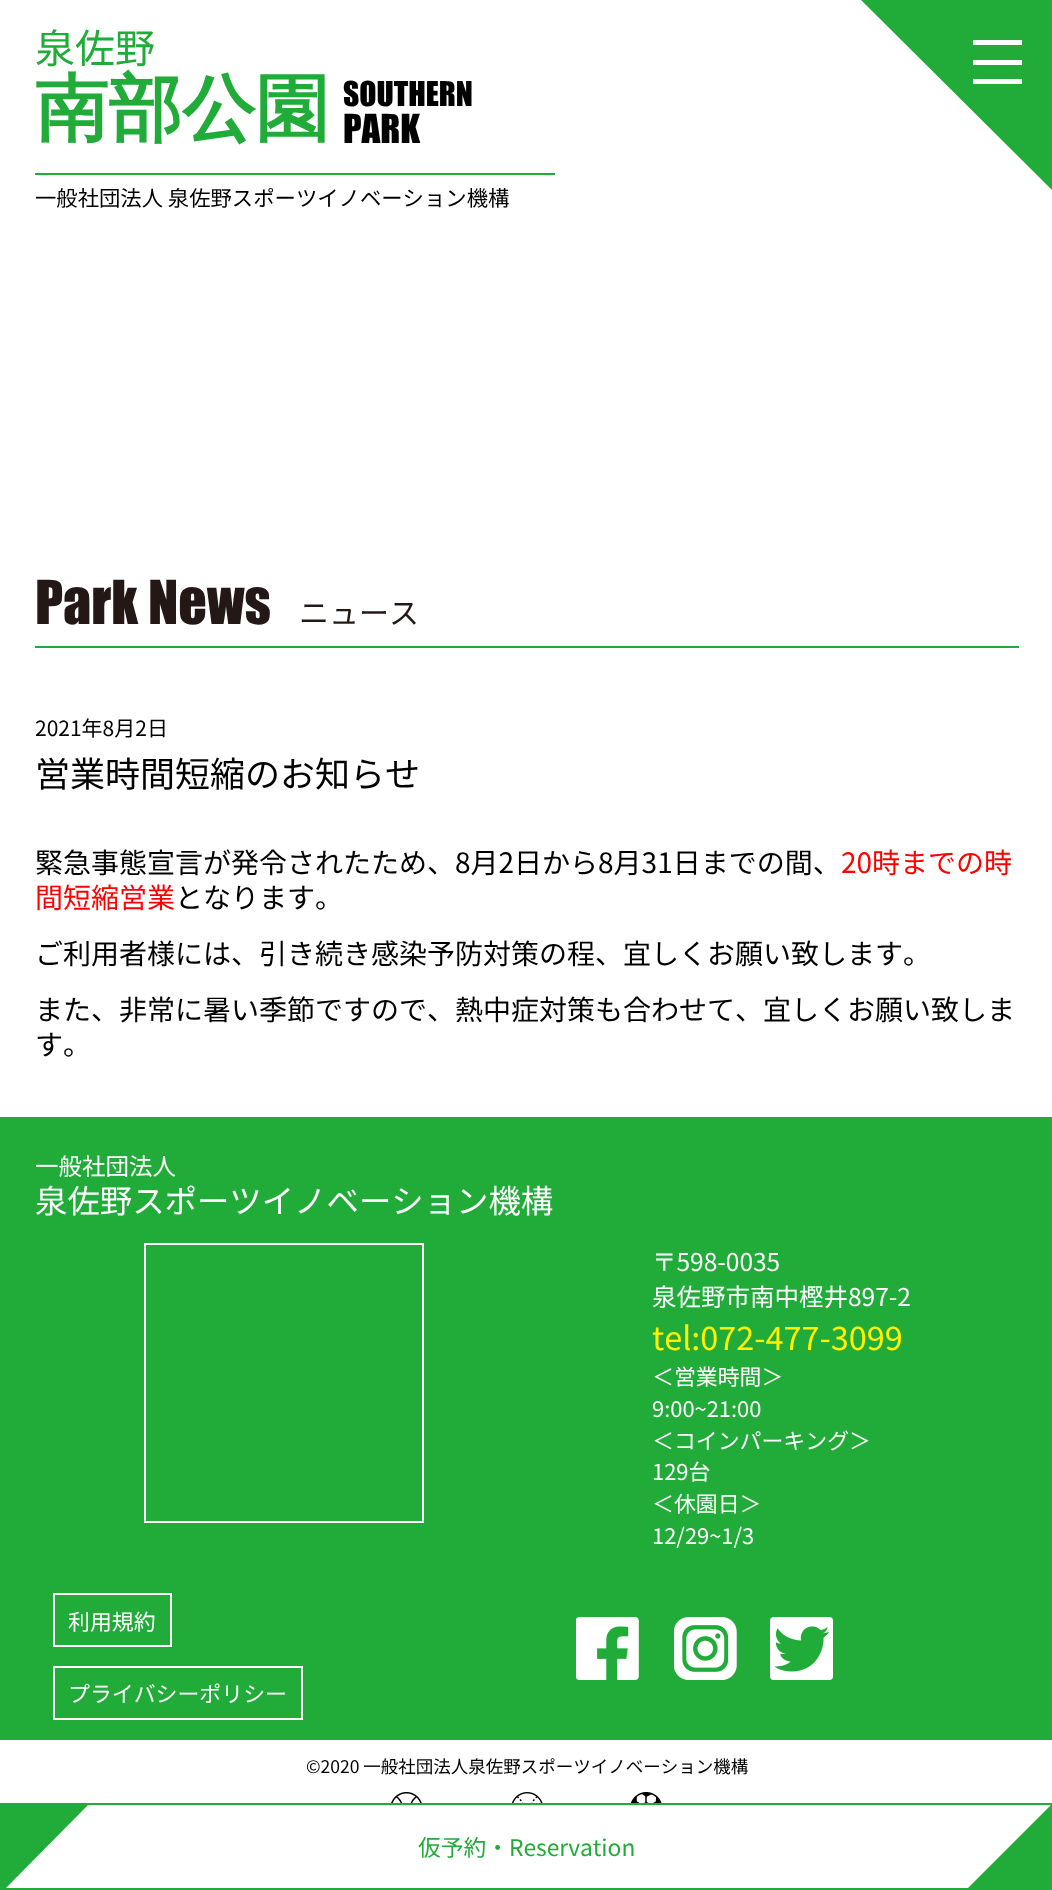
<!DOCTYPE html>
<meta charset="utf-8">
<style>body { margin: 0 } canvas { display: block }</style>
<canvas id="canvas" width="1052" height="1890"></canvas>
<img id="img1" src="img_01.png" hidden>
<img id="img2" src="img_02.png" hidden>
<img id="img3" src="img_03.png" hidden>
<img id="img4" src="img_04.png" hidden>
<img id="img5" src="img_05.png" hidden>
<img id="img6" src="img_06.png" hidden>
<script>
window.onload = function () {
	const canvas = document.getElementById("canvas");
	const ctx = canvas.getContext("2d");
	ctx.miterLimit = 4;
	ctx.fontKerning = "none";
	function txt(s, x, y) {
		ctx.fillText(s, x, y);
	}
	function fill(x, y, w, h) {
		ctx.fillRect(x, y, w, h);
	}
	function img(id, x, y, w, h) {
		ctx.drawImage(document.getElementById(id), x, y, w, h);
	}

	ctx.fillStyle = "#FFFFFF";
	fill(0, 0, 1052, 1890);
	ctx.fillStyle = "#21AC3A";
	fill(35, 173, 520, 2);
	ctx.beginPath();
	ctx.moveTo(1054, 0);
	ctx.lineTo(861, 0);
	ctx.lineTo(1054, 192);
	ctx.closePath();
	ctx.fill();
	ctx.fillStyle = "#FFFFFF";
	fill(973, 40, 49, 5);
	fill(973, 60, 49, 5);
	fill(973, 79, 49, 5);
	ctx.fillStyle = "#21AC3A";
	fill(35, 646, 984, 2);
	fill(0, 1117, 1052, 623);
	ctx.strokeStyle = "#FFFFFF";
	ctx.lineWidth = 2;
	ctx.strokeRect(145, 1244, 278, 278);
	ctx.strokeRect(54, 1594, 117, 52);
	ctx.strokeRect(54, 1667, 248, 52);
	img("img1", 576, 1617, 63, 63);
	img("img2", 674, 1617, 63, 63);
	img("img3", 770, 1617, 63, 63);
	img("img4", 391, 1792, 31, 11);
	img("img5", 512, 1792, 31, 11);
	img("img6", 630, 1792, 32, 11);
	ctx.strokeStyle = "#21AC3A";
	ctx.strokeRect(1, 1804, 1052, 85);
	ctx.save();
	ctx.beginPath();
	ctx.rect(2, 1804, 87, 84);
	ctx.clip();
	ctx.beginPath();
	ctx.moveTo(2, 1804);
	ctx.lineTo(89, 1804);
	ctx.lineTo(2, 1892);
	ctx.closePath();
	ctx.fill();
	ctx.restore();
	ctx.save();
	ctx.beginPath();
	ctx.rect(964, 1804, 88, 84);
	ctx.clip();
	ctx.beginPath();
	ctx.moveTo(1052, 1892);
	ctx.lineTo(964, 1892);
	ctx.lineTo(1052, 1804);
	ctx.closePath();
	ctx.fill();
	ctx.restore();
	ctx.font = "100 40px Noto Sans JP";
	txt("泉佐野", 35, 63);
	ctx.font = "bold 73.5px WenQuanYi Zen Hei";
	txt("南部公園", 35, 134);
	ctx.font = "31.5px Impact";
	ctx.fillStyle = "#000000";
	txt("SOUTHERN", 343, 106);
	ctx.font = "37px Impact";
	txt("PARK", 343, 143);
	ctx.font = "100 21.35px Noto Sans JP";
	txt("一般社団法人 泉佐野スポーツイノベーション機構", 35, 206);
	ctx.font = "56px Impact";
	ctx.fillStyle = "#231815";
	txt("Park News", 35, 624);
	ctx.font = "100 30px Noto Sans JP";
	txt("ニュース", 299, 624);
	ctx.font = "100 21px Noto Sans JP";
	ctx.fillStyle = "#000000";
	txt("2021年8月2日", 35, 736);
	ctx.font = "100 35px Noto Sans JP";
	txt("営業時間短縮のお知らせ", 35, 787);
	ctx.font = "100 28px Noto Sans JP";
	txt("緊急事態宣言が発令されたため、8月2日から8月31日までの間、", 35, 873);
	ctx.fillStyle = "#FF0000";
	txt("20時までの時", 841, 873);
	txt("間短縮営業", 35, 908);
	ctx.fillStyle = "#000000";
	txt("となります。", 175, 908);
	txt("ご利用者様には、引き続き感染予防対策の程、宜しくお願い致します。", 35, 964);
	txt("また、非常に暑い季節ですので、熱中症対策も合わせて、宜しくお願い致しま", 35, 1020);
	txt("す。", 35, 1055);
	ctx.font = "100 23.5px Noto Sans JP";
	ctx.fillStyle = "#FFFFFF";
	txt("一般社団法人", 35, 1175);
	ctx.font = "100 32.4px Noto Sans JP";
	txt("泉佐野スポーツイノベーション機構", 35, 1213);
	ctx.font = "100 24.5px Noto Sans JP";
	txt("〒598-0035", 652, 1271);
	txt("泉佐野市南中樫井897-2", 652, 1306);
	ctx.font = "100 32.4px Noto Sans JP";
	ctx.fillStyle = "#FFF100";
	txt("tel:072-477-3099", 652, 1350);
	ctx.font = "100 21.9px Noto Sans JP";
	ctx.fillStyle = "#FFFFFF";
	txt("＜営業時間＞", 652, 1385);
	txt("9:00~21:00", 652, 1417);
	txt("＜コインパーキング＞", 652, 1449);
	txt("129台", 652, 1480);
	txt("＜休園日＞", 652, 1512);
	txt("12/29~1/3", 652, 1544);
	txt("利用規約", 68, 1630);
	txt("プライバシーポリシー", 68, 1702);
	ctx.font = "100 17.5px Noto Sans JP";
	ctx.fillStyle = "#000000";
	txt("©2020 一般社団法人泉佐野スポーツイノベーション機構", 306, 1773);
	ctx.font = "100 22.75px Noto Sans JP";
	ctx.fillStyle = "#21AC3A";
	txt("仮予約・Reservation", 418, 1856);
};
</script>
